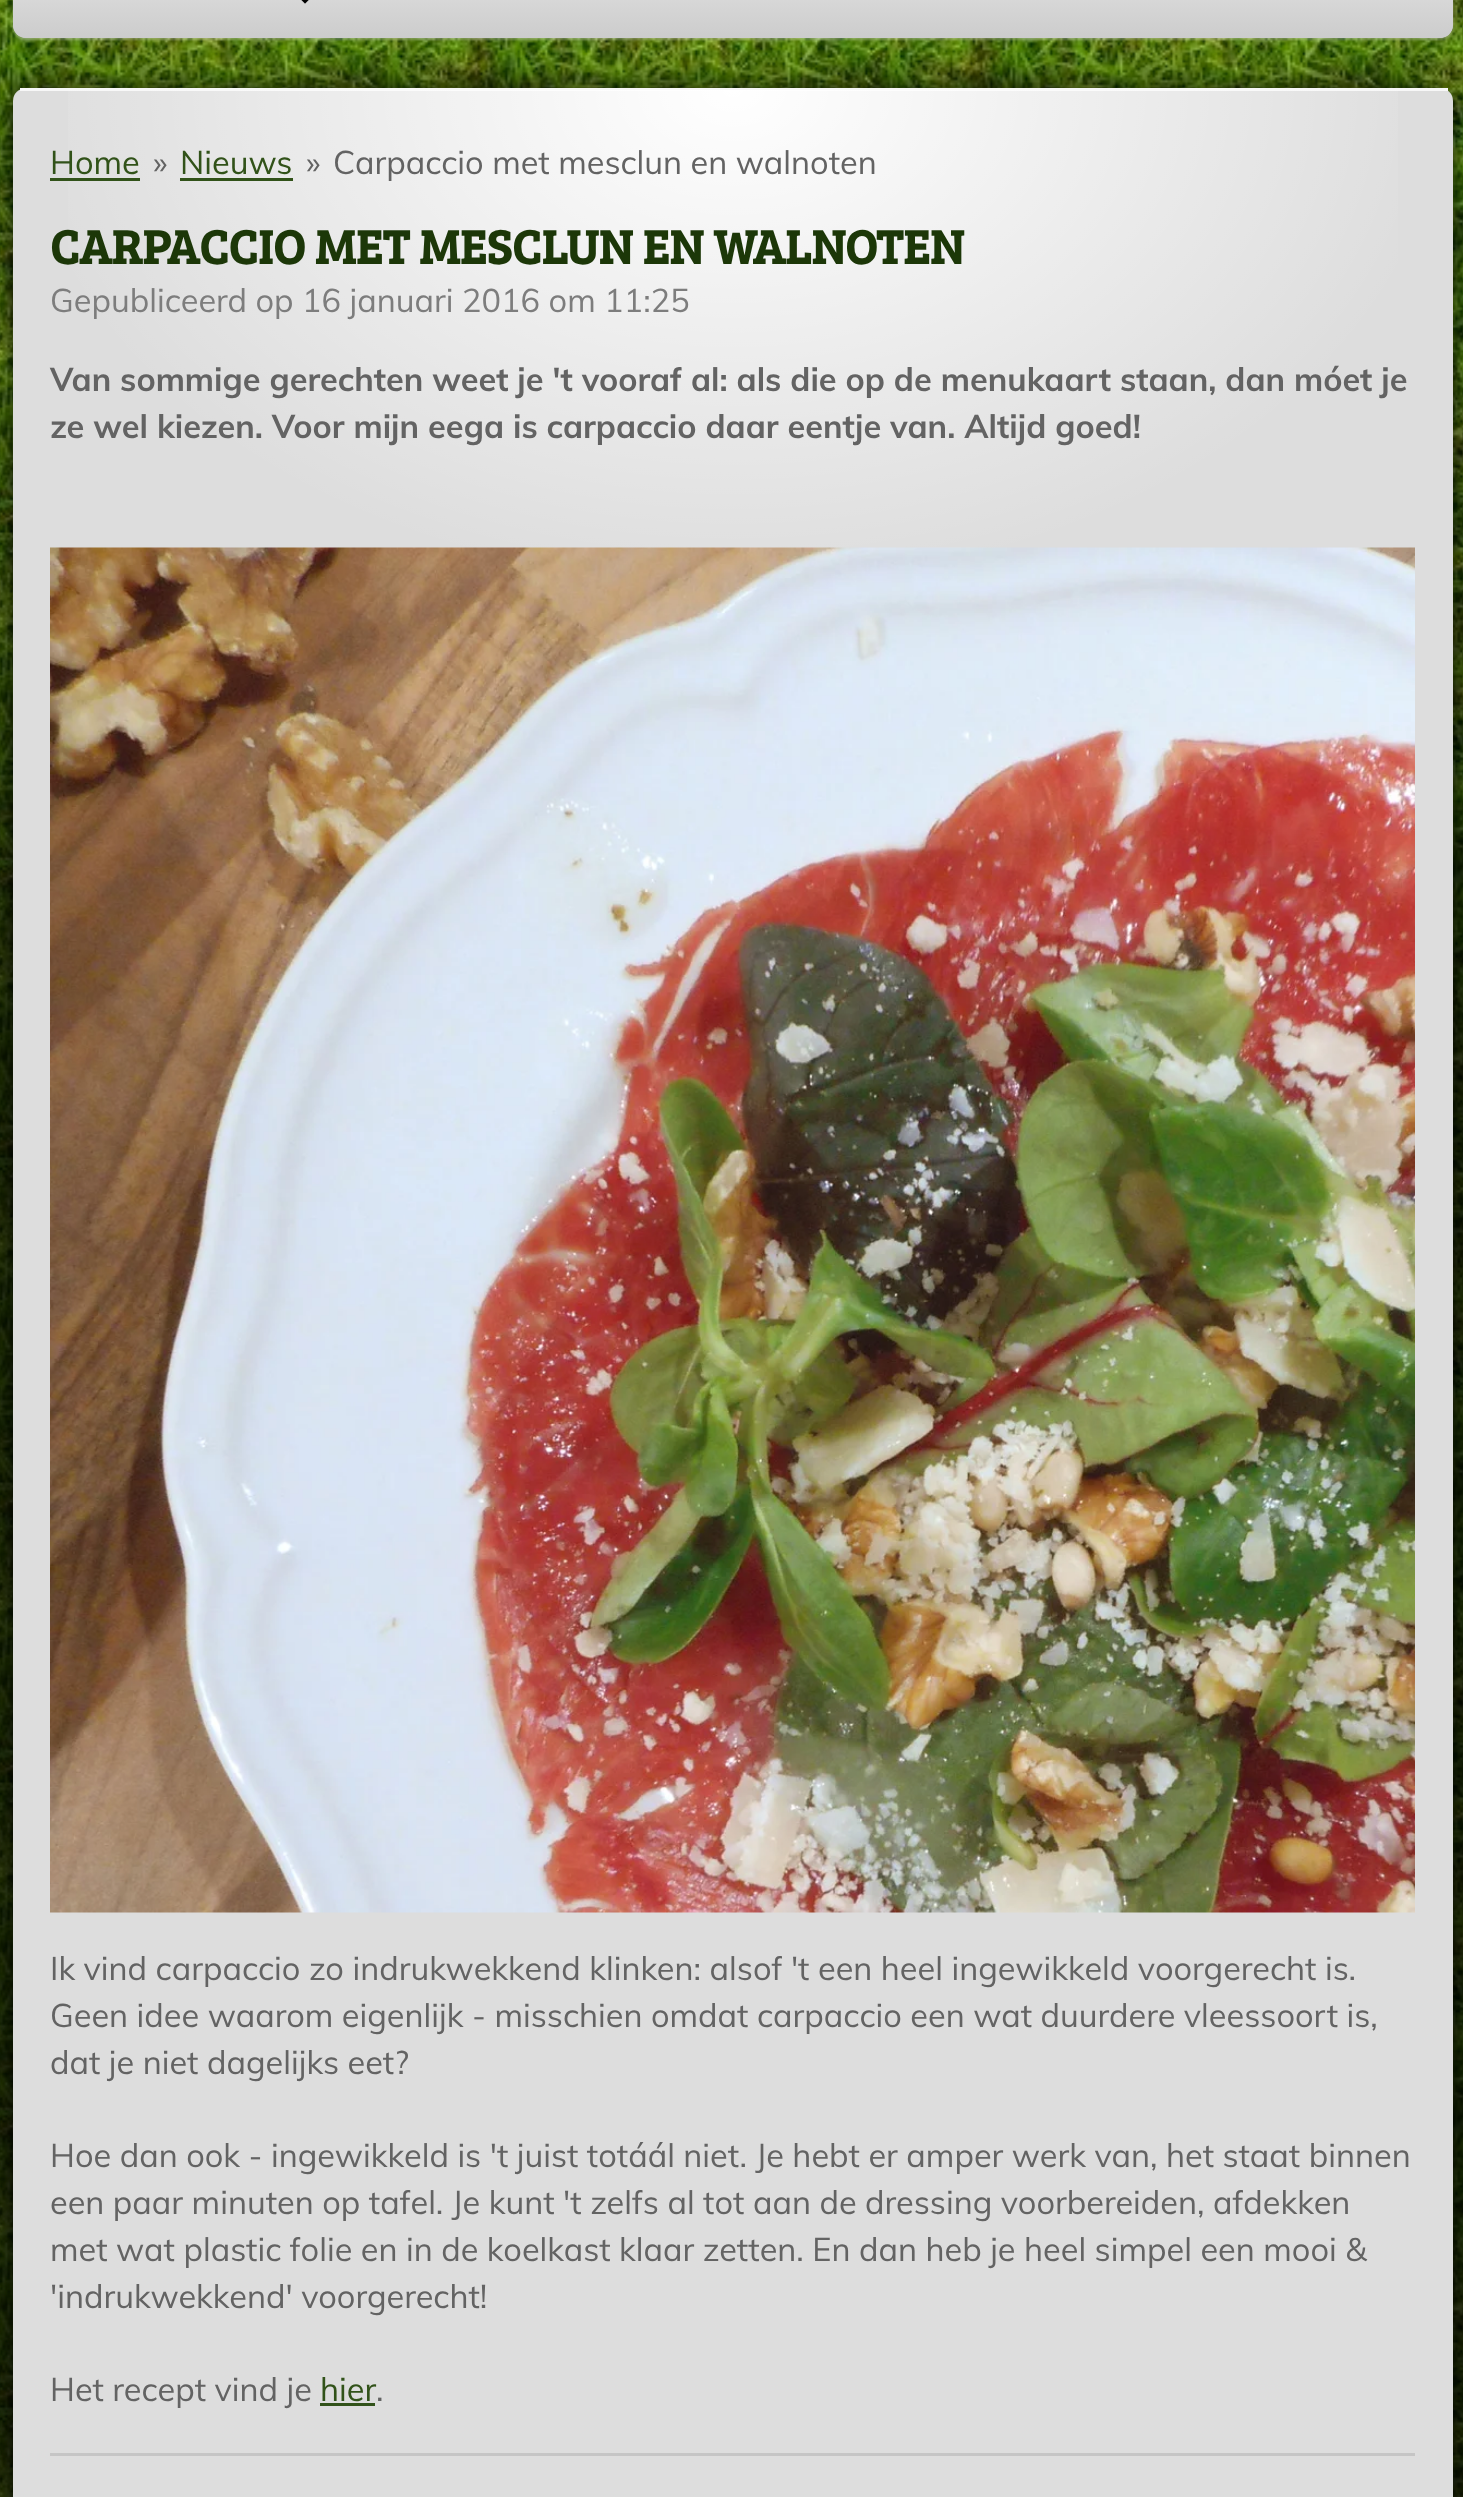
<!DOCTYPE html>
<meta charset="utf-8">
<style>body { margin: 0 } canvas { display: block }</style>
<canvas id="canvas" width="1463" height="2497"></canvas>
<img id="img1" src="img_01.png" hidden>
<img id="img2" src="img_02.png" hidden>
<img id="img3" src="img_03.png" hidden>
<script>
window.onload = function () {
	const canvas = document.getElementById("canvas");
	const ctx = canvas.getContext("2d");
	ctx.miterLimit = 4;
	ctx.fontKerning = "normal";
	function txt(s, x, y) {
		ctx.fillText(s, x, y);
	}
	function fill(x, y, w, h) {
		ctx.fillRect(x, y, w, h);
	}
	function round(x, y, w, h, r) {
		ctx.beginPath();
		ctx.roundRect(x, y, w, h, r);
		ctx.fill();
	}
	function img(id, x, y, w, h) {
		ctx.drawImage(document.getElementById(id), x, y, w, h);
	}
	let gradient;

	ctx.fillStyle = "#FFFFFF";
	fill(0, 0, 1463, 2497);
	img("img1", 0, 0, 1463, 2497);
	ctx.fillStyle = "rgba(255, 255, 255, 0.3)";
	ctx.filter = "blur(1px)";
	ctx.beginPath();
	ctx.roundRect(13, -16, 1440, 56, 13);
	ctx.fill();
	ctx.filter = "none";
	ctx.fillStyle = "#CCCCCC";
	round(13, -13, 1440, 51, 13);
	ctx.save();
	ctx.beginPath();
	ctx.roundRect(13, -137, 1440, 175, 13);
	ctx.clip();
	gradient = ctx.createLinearGradient(733, 38, 733, -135);
	gradient.addColorStop(0, "#CCCCCC");
	gradient.addColorStop(1, "#FFFFFF");
	ctx.fillStyle = gradient;
	ctx.beginPath();
	ctx.moveTo(13, -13);
	ctx.lineTo(1453, -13);
	ctx.lineTo(1453, 25);
	ctx.bezierCurveTo(1453, 32, 1447, 38, 1440, 38);
	ctx.lineTo(26, 38);
	ctx.bezierCurveTo(19, 38, 13, 32, 13, 25);
	ctx.closePath();
	ctx.fill();
	ctx.restore();
	img("img2", 301, 0, 8, 4);
	ctx.fillStyle = "rgba(0, 0, 0, 0.6)";
	fill(0, 1010, 1463, 1487);
	ctx.fillStyle = "#000000";
	ctx.filter = "blur(19px)";
	ctx.beginPath();
	ctx.roundRect(13, 88, 1440, 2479, 13);
	ctx.fill();
	ctx.filter = "none";
	ctx.fillStyle = "#DDDDDD";
	round(13, 88, 1440, 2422, 13);
	ctx.fillStyle = "#F7F7F7";
	fill(20, 88, 1428, 3);
	gradient = ctx.createRadialGradient(733, 129.6, 0, 733, 129.6, 720);
	gradient.addColorStop(0, "#FFFFFF");
	gradient.addColorStop(1, "rgba(255, 255, 255, 0)");
	ctx.fillStyle = gradient;
	ctx.beginPath();
	ctx.rect(68, 90, 1330, 458);
	ctx.save();
	ctx.clip();
	ctx.scale(1, 500 / 720);
	ctx.fillRect(0, 0, 1463, 3596);
	ctx.restore();
	ctx.fillStyle = "#315219";
	fill(50, 178, 90, 3);
	fill(180, 178, 113, 3);
	img("img3", 50, 547, 1365, 1366);
	fill(320, 2403, 55, 3);
	ctx.fillStyle = "#C5C5C5";
	fill(50, 2453, 1365, 3);
	ctx.font = "32.5px Muli";
	ctx.fillStyle = "#315219";
	txt("Home", 50, 174);
	ctx.fillStyle = "#636363";
	txt("»", 153, 174);
	ctx.fillStyle = "#315219";
	txt("Nieuws", 180, 174);
	ctx.fillStyle = "#636363";
	txt("»", 306, 174);
	txt("Carpaccio met mesclun en walnoten", 333, 174);
	ctx.font = "bold 48.75px Bree Serif";
	ctx.fillStyle = "#1C3708";
	txt("CARPACCIO MET MESCLUN EN WALNOTEN", 50, 264);
	ctx.font = "32.5px Muli";
	ctx.fillStyle = "#7D7D7D";
	txt("Gepubliceerd op 16 januari 2016 om 11:25", 50, 312);
	ctx.font = "bold 32.5px Muli";
	ctx.fillStyle = "#636363";
	txt("Van sommige gerechten weet je 't vooraf al: als die op de menukaart staan, dan móet je", 50, 391);
	txt("ze wel kiezen. Voor mijn eega is carpaccio daar eentje van. Altijd goed!", 50, 438);
	ctx.font = "32.5px Muli";
	txt("Ik vind carpaccio zo indrukwekkend klinken: alsof 't een heel ingewikkeld voorgerecht is.", 50, 1980);
	txt("Geen idee waarom eigenlijk - misschien omdat carpaccio een wat duurdere vleessoort is,", 50, 2027);
	txt("dat je niet dagelijks eet?", 50, 2074);
	txt("Hoe dan ook - ingewikkeld is 't juist totáál niet. Je hebt er amper werk van, het staat binnen", 50, 2167);
	txt("een paar minuten op tafel. Je kunt 't zelfs al tot aan de dressing voorbereiden, afdekken", 50, 2214);
	txt("met wat plastic folie en in de koelkast klaar zetten. En dan heb je heel simpel een mooi &", 50, 2261);
	txt("'indrukwekkend' voorgerecht!", 50, 2308);
	txt("Het recept vind je", 50, 2401);
	ctx.fillStyle = "#315219";
	txt("hier", 320, 2401);
	ctx.fillStyle = "#636363";
	txt(".", 376, 2401);
};
</script>
